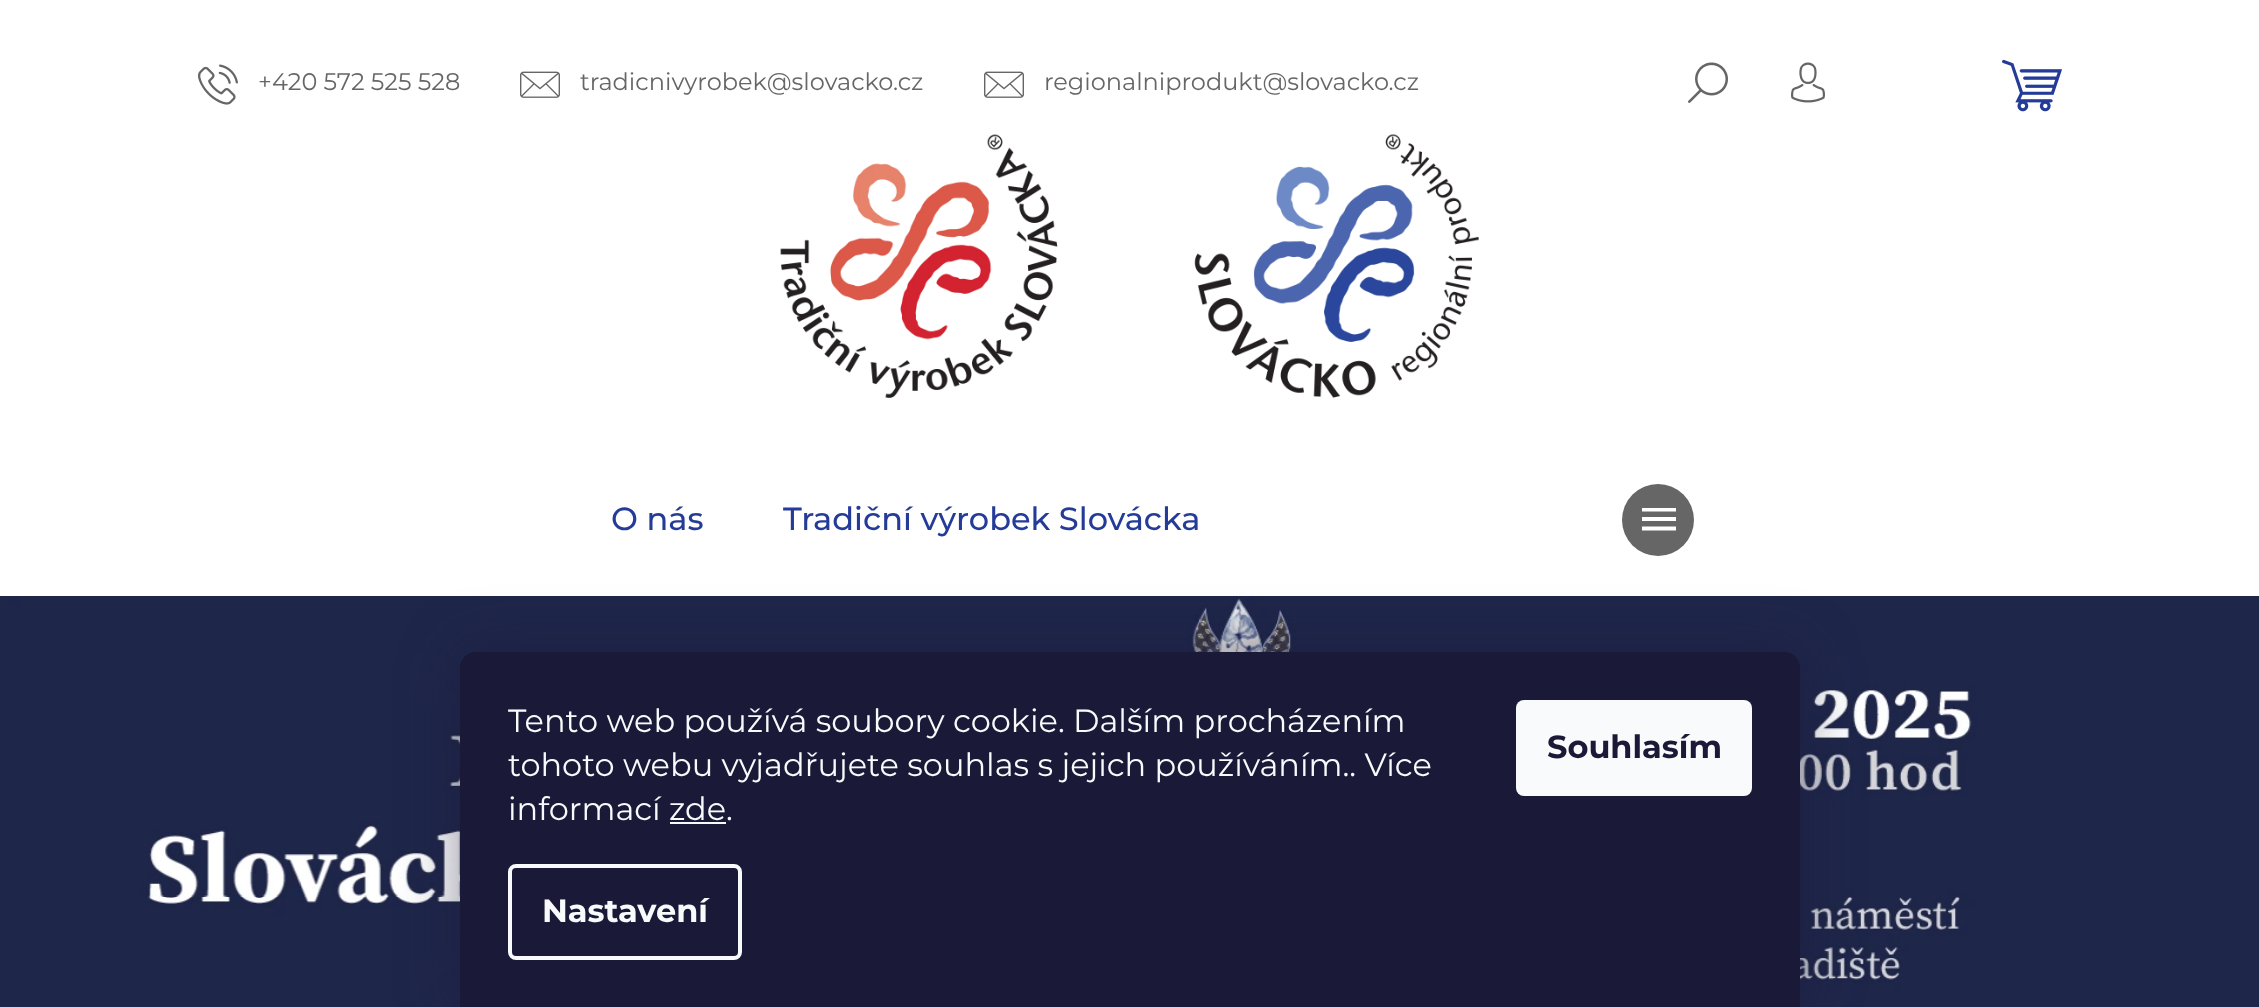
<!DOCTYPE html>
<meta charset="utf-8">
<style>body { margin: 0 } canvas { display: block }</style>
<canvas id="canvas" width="2259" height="1007"></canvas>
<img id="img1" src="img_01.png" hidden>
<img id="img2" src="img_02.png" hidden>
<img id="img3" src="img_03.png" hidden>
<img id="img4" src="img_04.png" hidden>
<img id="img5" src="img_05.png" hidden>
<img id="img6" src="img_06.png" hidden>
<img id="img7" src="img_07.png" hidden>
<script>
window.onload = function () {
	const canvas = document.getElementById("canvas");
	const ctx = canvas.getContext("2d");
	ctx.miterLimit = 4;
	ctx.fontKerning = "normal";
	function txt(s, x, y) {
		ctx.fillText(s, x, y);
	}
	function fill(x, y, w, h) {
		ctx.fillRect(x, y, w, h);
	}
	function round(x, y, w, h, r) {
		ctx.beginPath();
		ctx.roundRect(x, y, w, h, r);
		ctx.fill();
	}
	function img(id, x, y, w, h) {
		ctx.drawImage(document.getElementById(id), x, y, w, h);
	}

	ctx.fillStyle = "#FFFFFF";
	fill(0, 0, 2259, 1007);
	img("img1", 198, 64, 40, 41);
	img("img2", 520, 71, 40, 27);
	img("img2", 984, 71, 40, 27);
	img("img3", 1688, 62, 40, 41);
	img("img4", 1791, 62, 34, 41);
	img("img5", 2002, 59, 60, 53);
	img("img6", 780, 134, 699, 264);
	ctx.fillStyle = "#666666";
	ctx.beginPath();
	ctx.arc(1658, 520, 36, 0, Math.PI * 2);
	ctx.fill();
	ctx.fillStyle = "#FFFFFF";
	ctx.beginPath();
	ctx.moveTo(1642, 530.5);
	ctx.lineTo(1676, 530.5);
	ctx.lineTo(1676, 526.5);
	ctx.lineTo(1642, 526.5);
	ctx.closePath();
	ctx.moveTo(1642, 521);
	ctx.lineTo(1676, 521);
	ctx.lineTo(1676, 517);
	ctx.lineTo(1642, 517);
	ctx.closePath();
	ctx.moveTo(1642, 508);
	ctx.lineTo(1642, 511.5);
	ctx.lineTo(1676, 511.5);
	ctx.lineTo(1676, 508);
	ctx.closePath();
	ctx.fill();
	img("img7", 0, 596, 2259, 411);
	ctx.fillStyle = "rgba(27, 25, 57, 0.5)";
	ctx.filter = "blur(30px)";
	ctx.beginPath();
	ctx.roundRect(460, 652, 1340, 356, 16);
	ctx.fill();
	ctx.filter = "none";
	ctx.fillStyle = "#1A1937";
	ctx.beginPath();
	ctx.moveTo(476, 652);
	ctx.lineTo(1784, 652);
	ctx.bezierCurveTo(1793, 652, 1800, 659, 1800, 668);
	ctx.lineTo(1800, 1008);
	ctx.lineTo(460, 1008);
	ctx.lineTo(460, 668);
	ctx.bezierCurveTo(460, 659, 467, 652, 476, 652);
	ctx.closePath();
	ctx.fill();
	ctx.fillStyle = "#F8FAFB";
	fill(670, 822, 56, 2);
	ctx.beginPath();
	ctx.roundRect(510, 866, 230, 92, 6);
	ctx.strokeStyle = "#F8FAFB";
	ctx.lineWidth = 4;
	ctx.stroke();
	round(1516, 700, 236, 96, 8);
	ctx.font = "24px Montserrat";
	ctx.fillStyle = "#666666";
	txt("+420 572 525 528", 258, 90);
	txt("tradicnivyrobek@slovacko.cz", 580, 90);
	txt("regionalniprodukt@slovacko.cz", 1044, 90);
	ctx.font = "500 32px Montserrat";
	ctx.fillStyle = "#243B98";
	txt("O nás", 611, 530);
	txt("Tradiční výrobek Slovácka", 783, 530);
	ctx.font = "32px Montserrat";
	ctx.fillStyle = "#F8FAFB";
	txt("Tento web používá soubory cookie. Dalším procházením", 508, 732);
	txt("tohoto webu vyjadřujete souhlas s jejich používáním.. Více", 508, 776);
	txt("informací zde.", 508, 820);
	ctx.font = "bold 32px Montserrat";
	txt("Nastavení", 542, 922);
	ctx.fillStyle = "#1A1937";
	txt("Souhlasím", 1547, 758);
};
</script>
